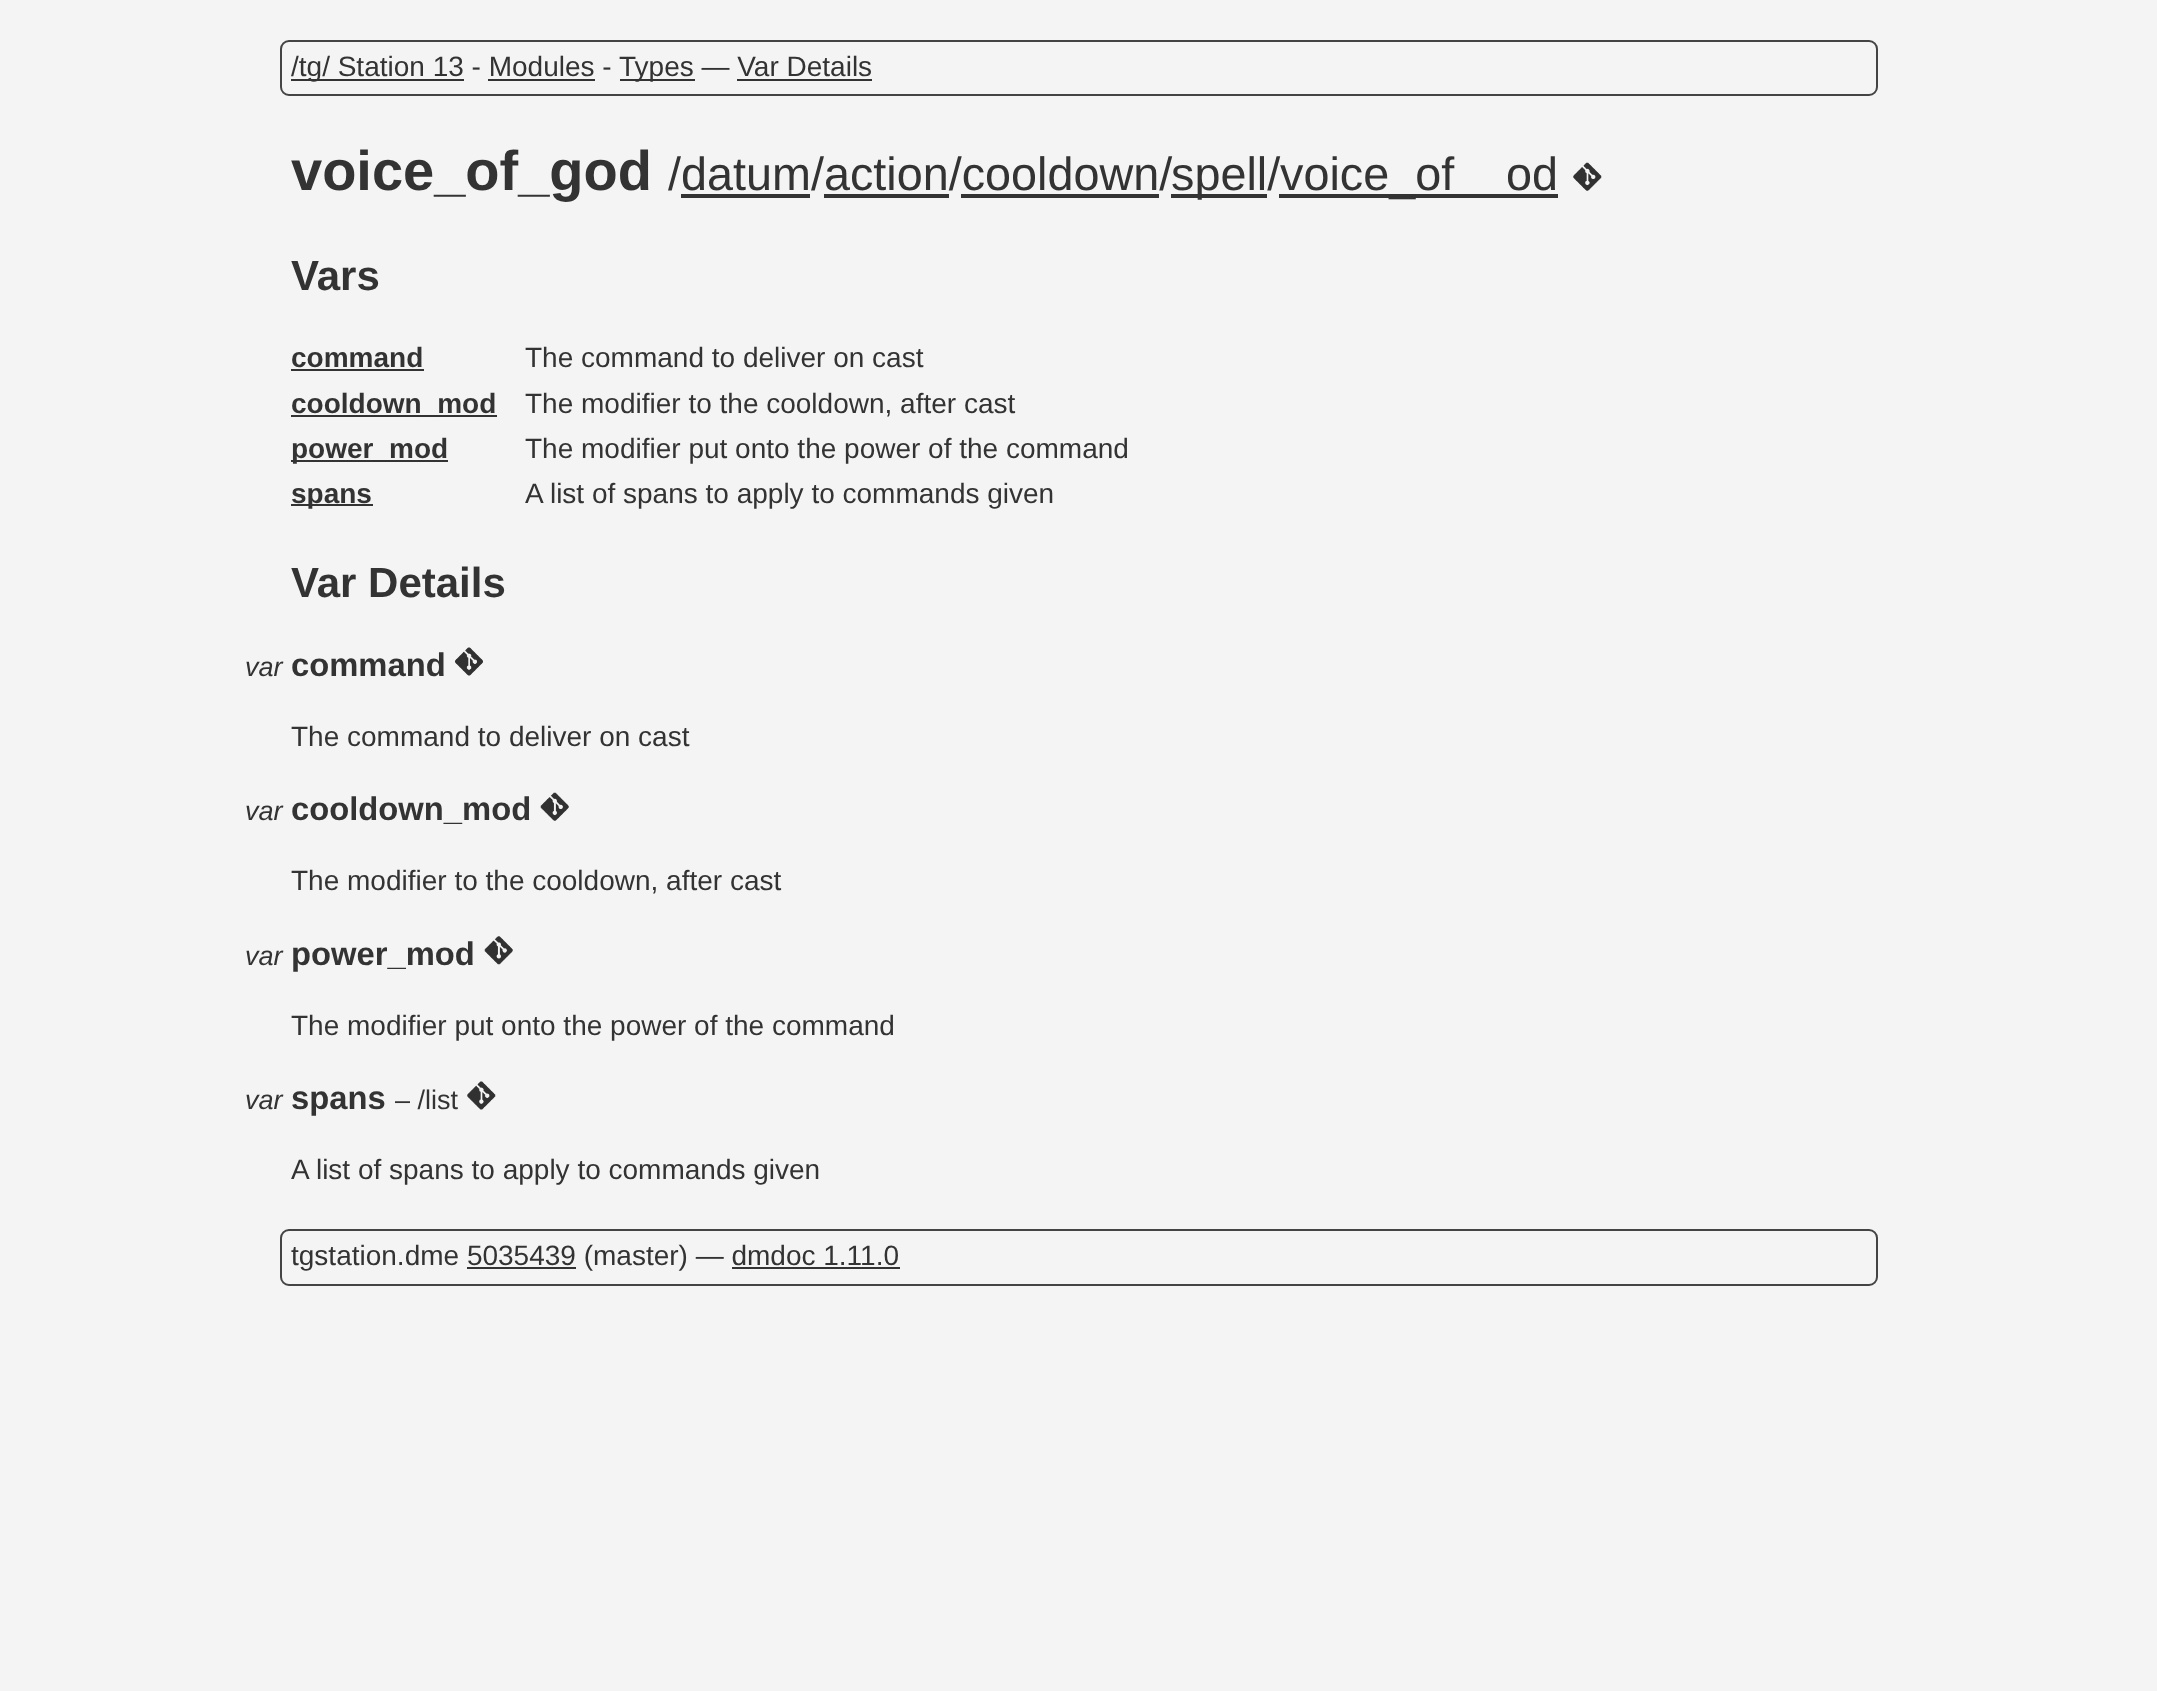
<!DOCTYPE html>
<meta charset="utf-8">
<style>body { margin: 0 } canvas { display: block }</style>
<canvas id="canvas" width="2157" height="1691"></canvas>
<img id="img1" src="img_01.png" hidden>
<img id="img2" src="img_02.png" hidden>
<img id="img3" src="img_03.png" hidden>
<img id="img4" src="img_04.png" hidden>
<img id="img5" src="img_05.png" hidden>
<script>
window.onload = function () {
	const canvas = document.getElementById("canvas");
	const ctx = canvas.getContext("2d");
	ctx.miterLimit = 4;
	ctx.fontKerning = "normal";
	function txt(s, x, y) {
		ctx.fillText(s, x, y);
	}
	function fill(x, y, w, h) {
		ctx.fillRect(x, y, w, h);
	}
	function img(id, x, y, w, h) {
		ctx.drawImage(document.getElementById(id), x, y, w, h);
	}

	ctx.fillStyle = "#F4F4F4";
	fill(0, 0, 2157, 1691);
	ctx.beginPath();
	ctx.roundRect(281, 41, 1596, 54, 8);
	ctx.strokeStyle = "#444444";
	ctx.lineWidth = 2;
	ctx.stroke();
	ctx.fillStyle = "#333333";
	fill(291, 79, 173, 2);
	fill(620, 79, 75, 2);
	fill(488, 79, 107, 2);
	fill(737, 79, 135, 2);
	fill(681, 194, 129, 4);
	fill(824, 194, 125, 4);
	fill(961, 194, 198, 4);
	fill(1171, 194, 96, 4);
	fill(1279, 194, 279, 4);
	img("img1", 1573, 162, 29, 29);
	fill(291, 369, 133, 2);
	fill(291, 415, 206, 2);
	fill(291, 460, 157, 2);
	fill(291, 504, 82, 2);
	img("img2", 455, 647, 28, 29);
	img("img3", 540, 792, 29, 29);
	img("img4", 484, 936, 29, 29);
	img("img5", 467, 1081, 29, 29);
	ctx.beginPath();
	ctx.roundRect(281, 1230, 1596, 55, 8);
	ctx.stroke();
	fill(467, 1267, 109, 2);
	fill(732, 1267, 168, 2);
	ctx.font = "28px Liberation Sans";
	txt("/tg/ Station 13 - Modules -", 291, 76);
	txt("Types — Var Details", 619, 76);
	ctx.font = "bold 56px Liberation Sans";
	txt("voice_of_god", 291, 190);
	ctx.font = "46.75px Liberation Sans";
	txt("/datum/action/cooldown/", 668, 190);
	txt("spell/", 1171, 190);
	txt("voice_of", 1280, 190);
	txt("od", 1506, 190);
	ctx.font = "bold 42px Liberation Sans";
	txt("Vars", 291, 290);
	ctx.font = "bold 28px Liberation Sans";
	txt("command", 291, 367);
	ctx.font = "28px Liberation Sans";
	txt("The command to deliver on cast", 525, 367);
	ctx.font = "bold 28px Liberation Sans";
	txt("cooldown_mod", 291, 413);
	ctx.font = "28px Liberation Sans";
	txt("The modifier to the cooldown, after cast", 525, 413);
	ctx.font = "bold 28px Liberation Sans";
	txt("power_mod", 291, 458);
	ctx.font = "28px Liberation Sans";
	txt("The modifier put onto the power of the command", 525, 458);
	ctx.font = "bold 28px Liberation Sans";
	txt("spans", 291, 503);
	ctx.font = "28px Liberation Sans";
	txt("A list of spans to apply to commands given", 525, 503);
	ctx.font = "bold 42px Liberation Sans";
	txt("Var Details", 291, 597);
	ctx.font = "italic 27px Liberation Sans";
	txt("var", 245, 676);
	ctx.font = "bold 32.75px Liberation Sans";
	txt("command", 291, 676);
	ctx.font = "28px Liberation Sans";
	txt("The command to deliver on cast", 291, 746);
	ctx.font = "italic 27px Liberation Sans";
	txt("var", 245, 820);
	ctx.font = "bold 32.75px Liberation Sans";
	txt("cooldown_mod", 291, 820);
	ctx.font = "28px Liberation Sans";
	txt("The modifier to the cooldown, after cast", 291, 890);
	ctx.font = "italic 27px Liberation Sans";
	txt("var", 245, 965);
	ctx.font = "bold 32.75px Liberation Sans";
	txt("power_mod", 291, 965);
	ctx.font = "28px Liberation Sans";
	txt("The modifier put onto the power of the command", 291, 1035);
	ctx.font = "italic 27px Liberation Sans";
	txt("var", 245, 1109);
	ctx.font = "bold 32.75px Liberation Sans";
	txt("spans", 291, 1109);
	ctx.font = "27px Liberation Sans";
	txt("– /list", 395, 1109);
	ctx.font = "28px Liberation Sans";
	txt("A list of spans to apply to commands given", 291, 1179);
	txt("tgstation.dme 5035439 (master) — dmdoc 1.11.0", 291, 1265);
};
</script>
